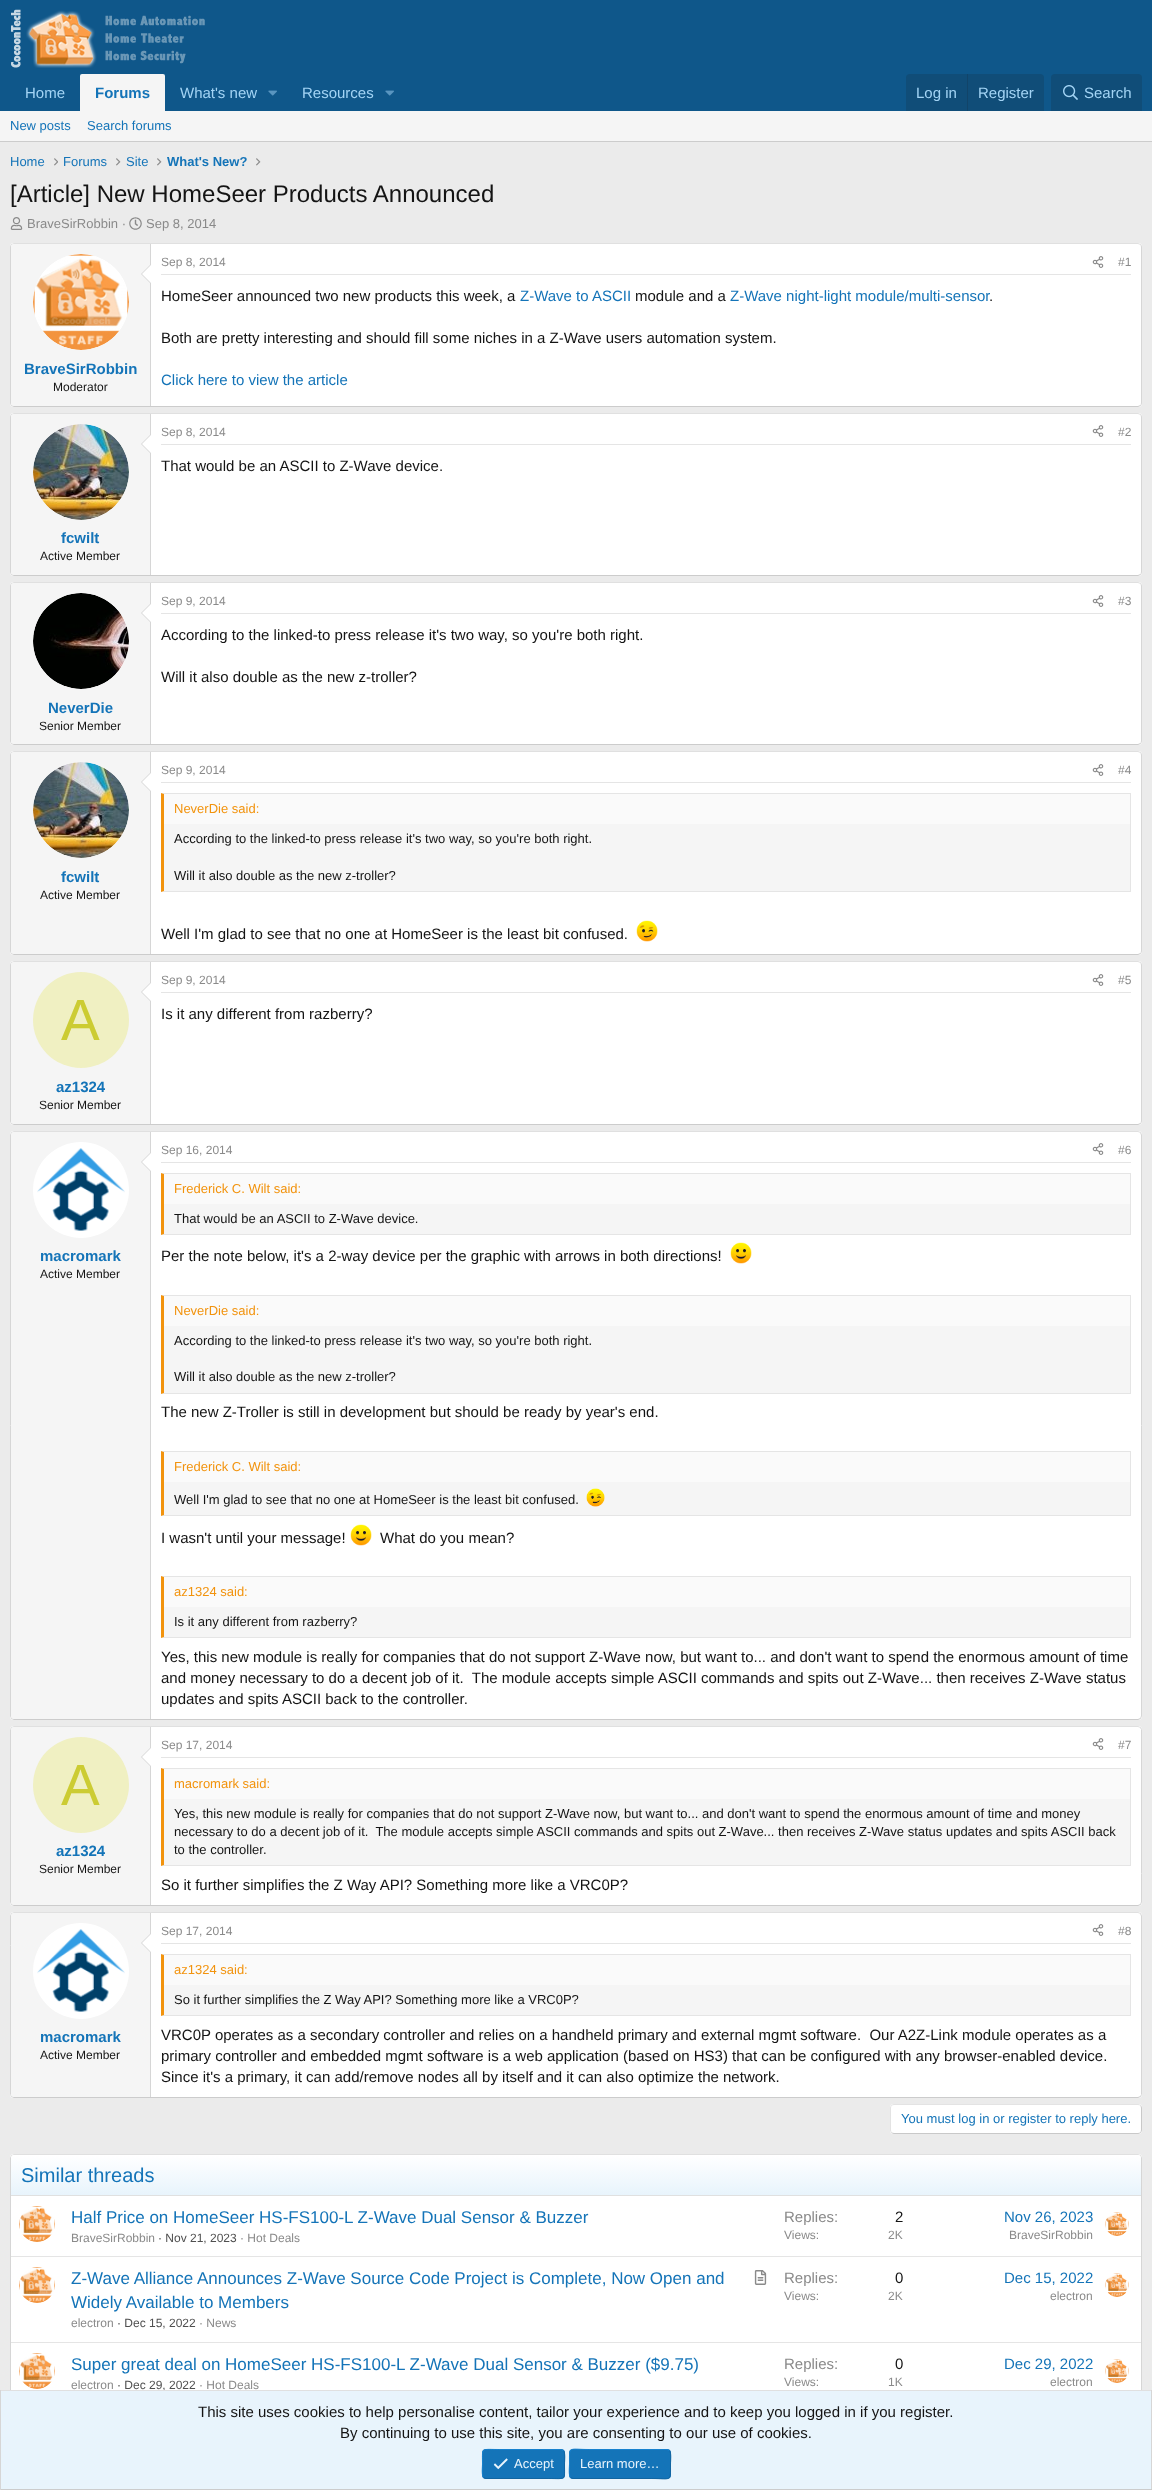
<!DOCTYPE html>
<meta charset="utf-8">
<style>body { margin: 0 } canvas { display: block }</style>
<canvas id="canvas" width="1152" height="2490"></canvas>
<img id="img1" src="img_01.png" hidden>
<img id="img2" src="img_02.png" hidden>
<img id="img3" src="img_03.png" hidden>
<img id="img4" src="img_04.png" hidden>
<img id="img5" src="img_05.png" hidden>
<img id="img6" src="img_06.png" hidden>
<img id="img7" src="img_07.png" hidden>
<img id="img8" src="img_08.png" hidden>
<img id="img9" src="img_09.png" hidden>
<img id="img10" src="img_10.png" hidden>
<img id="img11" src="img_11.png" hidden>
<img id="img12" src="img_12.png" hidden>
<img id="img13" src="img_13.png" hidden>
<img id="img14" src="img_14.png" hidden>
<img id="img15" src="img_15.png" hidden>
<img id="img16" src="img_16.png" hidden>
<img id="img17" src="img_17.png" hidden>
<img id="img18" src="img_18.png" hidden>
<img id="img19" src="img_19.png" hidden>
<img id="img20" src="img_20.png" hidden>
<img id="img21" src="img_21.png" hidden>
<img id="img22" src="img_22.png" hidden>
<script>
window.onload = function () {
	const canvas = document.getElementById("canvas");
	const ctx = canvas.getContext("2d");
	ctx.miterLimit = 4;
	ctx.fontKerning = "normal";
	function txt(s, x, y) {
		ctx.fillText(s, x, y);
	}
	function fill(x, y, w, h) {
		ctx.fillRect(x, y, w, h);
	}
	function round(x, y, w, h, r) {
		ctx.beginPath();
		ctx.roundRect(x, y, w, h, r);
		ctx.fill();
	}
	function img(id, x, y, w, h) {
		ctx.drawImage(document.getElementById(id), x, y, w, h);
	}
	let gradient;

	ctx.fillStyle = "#EBEBEB";
	fill(0, 0, 1152, 2490);
	ctx.fillStyle = "#0F578A";
	fill(0, 0, 1152, 74);
	img("img1", 11, 9, 194, 59);
	fill(0, 74, 1152, 37);
	ctx.fillStyle = "#F5F5F5";
	ctx.beginPath();
	ctx.roundRect(80, 74, 85, 37, [2, 2, 0, 0]);
	ctx.fill();
	img("img2", 268, 90, 9, 6);
	img("img2", 385, 90, 9, 6);
	ctx.fillStyle = "#104D78";
	ctx.beginPath();
	ctx.roundRect(906, 74, 138, 37, [4, 4, 0, 0]);
	ctx.fill();
	ctx.fillStyle = "#114469";
	fill(967, 74, 1, 37);
	ctx.fillStyle = "#104D78";
	ctx.beginPath();
	ctx.roundRect(1051, 74, 91, 37, [4, 4, 0, 0]);
	ctx.fill();
	img("img3", 1063, 85, 15, 15);
	ctx.fillStyle = "#F5F5F5";
	fill(0, 111, 1152, 30);
	ctx.fillStyle = "#CCCCCC";
	fill(0, 141, 1152, 1);
	img("img4", 54, 158, 4, 8);
	img("img5", 116, 158, 5, 8);
	img("img5", 157, 158, 5, 8);
	img("img5", 256, 158, 5, 8);
	img("img6", 10, 217, 13, 13);
	img("img7", 129, 217, 13, 13);
	ctx.fillStyle = "#FFFFFF";
	round(10, 243, 1132, 164, 4);
	ctx.beginPath();
	ctx.moveTo(11.5, 244.5);
	ctx.lineTo(14, 243.5);
	ctx.lineTo(1138, 243.5);
	ctx.lineTo(1140.5, 244.5);
	ctx.strokeStyle = "#E0E0E0";
	ctx.stroke();
	ctx.beginPath();
	ctx.moveTo(1140.5, 244.5);
	ctx.bezierCurveTo(1141, 245, 1141.5, 246, 1141.5, 247);
	ctx.lineTo(1141.5, 403);
	ctx.bezierCurveTo(1141.5, 404, 1141, 405, 1140.5, 405.5);
	ctx.strokeStyle = "#D6D6D6";
	ctx.stroke();
	ctx.beginPath();
	ctx.moveTo(1140.5, 405.5);
	ctx.lineTo(1138, 406.5);
	ctx.lineTo(14, 406.5);
	ctx.lineTo(11.5, 405.5);
	ctx.strokeStyle = "#CCCCCC";
	ctx.stroke();
	ctx.beginPath();
	ctx.moveTo(11.5, 405.5);
	ctx.bezierCurveTo(11, 405, 10.5, 404, 10.5, 403);
	ctx.lineTo(10.5, 247);
	ctx.bezierCurveTo(10.5, 246, 11, 245, 11.5, 244.5);
	ctx.strokeStyle = "#D6D6D6";
	ctx.stroke();
	ctx.fillStyle = "#F5F5F5";
	ctx.beginPath();
	ctx.roundRect(11, 244, 140, 162, [3, 0, 0, 3]);
	ctx.fill();
	ctx.fillStyle = "#D6D6D6";
	fill(150, 244, 1, 162);
	ctx.fillStyle = "#FFFFFF";
	ctx.beginPath();
	ctx.arc(81, 302, 48, 0, Math.PI * 2);
	ctx.fill();
	img("img8", 33, 254, 96, 96);
	ctx.fillStyle = "#D6D6D6";
	ctx.beginPath();
	ctx.moveTo(151, 264);
	ctx.lineTo(151, 284);
	ctx.lineTo(141, 274);
	ctx.closePath();
	ctx.fill();
	ctx.fillStyle = "#FFFFFF";
	ctx.beginPath();
	ctx.moveTo(151, 265);
	ctx.lineTo(151, 283);
	ctx.lineTo(142, 274);
	ctx.closePath();
	ctx.fill();
	ctx.fillStyle = "#E5E5E5";
	fill(161, 274, 970, 1);
	img("img9", 1092, 256, 12, 12);
	ctx.fillStyle = "#FFFFFF";
	round(10, 413, 1132, 163, 4);
	ctx.beginPath();
	ctx.moveTo(11.5, 414.5);
	ctx.lineTo(14, 413.5);
	ctx.lineTo(1138, 413.5);
	ctx.lineTo(1140.5, 414.5);
	ctx.strokeStyle = "#E0E0E0";
	ctx.stroke();
	ctx.beginPath();
	ctx.moveTo(1140.5, 414.5);
	ctx.bezierCurveTo(1141, 415, 1141.5, 416, 1141.5, 417);
	ctx.lineTo(1141.5, 572);
	ctx.bezierCurveTo(1141.5, 573, 1141, 574, 1140.5, 574.5);
	ctx.strokeStyle = "#D6D6D6";
	ctx.stroke();
	ctx.beginPath();
	ctx.moveTo(1140.5, 574.5);
	ctx.lineTo(1138, 575.5);
	ctx.lineTo(14, 575.5);
	ctx.lineTo(11.5, 574.5);
	ctx.strokeStyle = "#CCCCCC";
	ctx.stroke();
	ctx.beginPath();
	ctx.moveTo(11.5, 574.5);
	ctx.bezierCurveTo(11, 574, 10.5, 573, 10.5, 572);
	ctx.lineTo(10.5, 417);
	ctx.bezierCurveTo(10.5, 416, 11, 415, 11.5, 414.5);
	ctx.strokeStyle = "#D6D6D6";
	ctx.stroke();
	ctx.fillStyle = "#E5E5E5";
	fill(161, 444, 970, 1);
	img("img9", 1092, 425, 12, 12);
	ctx.fillStyle = "#F5F5F5";
	ctx.beginPath();
	ctx.roundRect(11, 414, 140, 161, [3, 0, 0, 3]);
	ctx.fill();
	ctx.fillStyle = "#D6D6D6";
	fill(150, 414, 1, 161);
	ctx.fillStyle = "#FFFFFF";
	ctx.beginPath();
	ctx.arc(81, 472, 48, 0, Math.PI * 2);
	ctx.fill();
	img("img10", 33, 424, 96, 96);
	ctx.fillStyle = "#D6D6D6";
	ctx.beginPath();
	ctx.moveTo(151, 434);
	ctx.lineTo(151, 454);
	ctx.lineTo(141, 444);
	ctx.closePath();
	ctx.fill();
	ctx.fillStyle = "#FFFFFF";
	ctx.beginPath();
	ctx.moveTo(151, 435);
	ctx.lineTo(151, 453);
	ctx.lineTo(142, 444);
	ctx.closePath();
	ctx.fill();
	round(10, 582, 1132, 163, 4);
	ctx.beginPath();
	ctx.moveTo(11.5, 583.5);
	ctx.lineTo(14, 582.5);
	ctx.lineTo(1138, 582.5);
	ctx.lineTo(1140.5, 583.5);
	ctx.strokeStyle = "#E0E0E0";
	ctx.stroke();
	ctx.beginPath();
	ctx.moveTo(1140.5, 583.5);
	ctx.bezierCurveTo(1141, 584, 1141.5, 585, 1141.5, 586);
	ctx.lineTo(1141.5, 741);
	ctx.bezierCurveTo(1141.5, 742, 1141, 743, 1140.5, 743.5);
	ctx.strokeStyle = "#D6D6D6";
	ctx.stroke();
	ctx.beginPath();
	ctx.moveTo(1140.5, 743.5);
	ctx.lineTo(1138, 744.5);
	ctx.lineTo(14, 744.5);
	ctx.lineTo(11.5, 743.5);
	ctx.strokeStyle = "#CCCCCC";
	ctx.stroke();
	ctx.beginPath();
	ctx.moveTo(11.5, 743.5);
	ctx.bezierCurveTo(11, 743, 10.5, 742, 10.5, 741);
	ctx.lineTo(10.5, 586);
	ctx.bezierCurveTo(10.5, 585, 11, 584, 11.5, 583.5);
	ctx.strokeStyle = "#D6D6D6";
	ctx.stroke();
	ctx.fillStyle = "#E5E5E5";
	fill(161, 613, 970, 1);
	img("img9", 1092, 595, 12, 12);
	ctx.fillStyle = "#F5F5F5";
	ctx.beginPath();
	ctx.roundRect(11, 583, 140, 161, [3, 0, 0, 3]);
	ctx.fill();
	ctx.fillStyle = "#D6D6D6";
	fill(150, 583, 1, 161);
	ctx.fillStyle = "#FFFFFF";
	ctx.beginPath();
	ctx.arc(81, 641, 48, 0, Math.PI * 2);
	ctx.fill();
	img("img11", 33, 593, 96, 96);
	ctx.fillStyle = "#D6D6D6";
	ctx.beginPath();
	ctx.moveTo(151, 603);
	ctx.lineTo(151, 623);
	ctx.lineTo(141, 613);
	ctx.closePath();
	ctx.fill();
	ctx.fillStyle = "#FFFFFF";
	ctx.beginPath();
	ctx.moveTo(151, 604);
	ctx.lineTo(151, 622);
	ctx.lineTo(142, 613);
	ctx.closePath();
	ctx.fill();
	round(10, 751, 1132, 204, 4);
	ctx.beginPath();
	ctx.moveTo(11.5, 752.5);
	ctx.lineTo(14, 751.5);
	ctx.lineTo(1138, 751.5);
	ctx.lineTo(1140.5, 752.5);
	ctx.strokeStyle = "#E0E0E0";
	ctx.stroke();
	ctx.beginPath();
	ctx.moveTo(1140.5, 752.5);
	ctx.bezierCurveTo(1141, 753, 1141.5, 754, 1141.5, 755);
	ctx.lineTo(1141.5, 951);
	ctx.bezierCurveTo(1141.5, 952, 1141, 953, 1140.5, 953.5);
	ctx.strokeStyle = "#D6D6D6";
	ctx.stroke();
	ctx.beginPath();
	ctx.moveTo(1140.5, 953.5);
	ctx.lineTo(1138, 954.5);
	ctx.lineTo(14, 954.5);
	ctx.lineTo(11.5, 953.5);
	ctx.strokeStyle = "#CCCCCC";
	ctx.stroke();
	ctx.beginPath();
	ctx.moveTo(11.5, 953.5);
	ctx.bezierCurveTo(11, 953, 10.5, 952, 10.5, 951);
	ctx.lineTo(10.5, 755);
	ctx.bezierCurveTo(10.5, 754, 11, 753, 11.5, 752.5);
	ctx.strokeStyle = "#D6D6D6";
	ctx.stroke();
	ctx.fillStyle = "#F5F5F5";
	ctx.beginPath();
	ctx.roundRect(11, 752, 140, 202, [3, 0, 0, 3]);
	ctx.fill();
	ctx.fillStyle = "#D6D6D6";
	fill(150, 752, 1, 202);
	ctx.fillStyle = "#FFFFFF";
	ctx.beginPath();
	ctx.arc(81, 810, 48, 0, Math.PI * 2);
	ctx.fill();
	img("img12", 33, 762, 96, 96);
	ctx.fillStyle = "#D6D6D6";
	ctx.beginPath();
	ctx.moveTo(151, 772);
	ctx.lineTo(151, 792);
	ctx.lineTo(141, 782);
	ctx.closePath();
	ctx.fill();
	ctx.fillStyle = "#FFFFFF";
	ctx.beginPath();
	ctx.moveTo(151, 773);
	ctx.lineTo(151, 791);
	ctx.lineTo(142, 782);
	ctx.closePath();
	ctx.fill();
	ctx.fillStyle = "#E5E5E5";
	fill(161, 782, 970, 1);
	img("img9", 1092, 764, 12, 12);
	ctx.fillStyle = "#F5F5F5";
	fill(164, 824, 966, 67);
	ctx.fillStyle = "#E5E5E5";
	ctx.beginPath();
	ctx.moveTo(161, 793);
	ctx.lineTo(1131, 793);
	ctx.lineTo(1130, 794);
	ctx.lineTo(164, 794);
	ctx.closePath();
	ctx.fill();
	fill(1130, 793, 1, 99);
	ctx.beginPath();
	ctx.moveTo(1131, 892);
	ctx.lineTo(161, 892);
	ctx.lineTo(164, 891);
	ctx.lineTo(1130, 891);
	ctx.closePath();
	ctx.fill();
	ctx.fillStyle = "#F2930D";
	ctx.beginPath();
	ctx.moveTo(161, 892);
	ctx.lineTo(161, 793);
	ctx.lineTo(164, 794);
	ctx.lineTo(164, 891);
	ctx.closePath();
	ctx.fill();
	ctx.fillStyle = "#FAFAFA";
	fill(164, 794, 966, 30);
	img("img13", 636, 920, 22, 22);
	ctx.fillStyle = "#FFFFFF";
	round(10, 961, 1132, 164, 4);
	ctx.beginPath();
	ctx.moveTo(11.5, 962.5);
	ctx.lineTo(14, 961.5);
	ctx.lineTo(1138, 961.5);
	ctx.lineTo(1140.5, 962.5);
	ctx.strokeStyle = "#E0E0E0";
	ctx.stroke();
	ctx.beginPath();
	ctx.moveTo(1140.5, 962.5);
	ctx.bezierCurveTo(1141, 963, 1141.5, 964, 1141.5, 965);
	ctx.lineTo(1141.5, 1121);
	ctx.bezierCurveTo(1141.5, 1122, 1141, 1123, 1140.5, 1123.5);
	ctx.strokeStyle = "#D6D6D6";
	ctx.stroke();
	ctx.beginPath();
	ctx.moveTo(1140.5, 1123.5);
	ctx.lineTo(1138, 1124.5);
	ctx.lineTo(14, 1124.5);
	ctx.lineTo(11.5, 1123.5);
	ctx.strokeStyle = "#CCCCCC";
	ctx.stroke();
	ctx.beginPath();
	ctx.moveTo(11.5, 1123.5);
	ctx.bezierCurveTo(11, 1123, 10.5, 1122, 10.5, 1121);
	ctx.lineTo(10.5, 965);
	ctx.bezierCurveTo(10.5, 964, 11, 963, 11.5, 962.5);
	ctx.strokeStyle = "#D6D6D6";
	ctx.stroke();
	ctx.fillStyle = "#F5F5F5";
	ctx.beginPath();
	ctx.roundRect(11, 962, 140, 162, [3, 0, 0, 3]);
	ctx.fill();
	ctx.fillStyle = "#D6D6D6";
	fill(150, 962, 1, 162);
	ctx.beginPath();
	ctx.moveTo(151, 982);
	ctx.lineTo(151, 1002);
	ctx.lineTo(141, 992);
	ctx.closePath();
	ctx.fill();
	ctx.fillStyle = "#FFFFFF";
	ctx.beginPath();
	ctx.moveTo(151, 983);
	ctx.lineTo(151, 1001);
	ctx.lineTo(142, 992);
	ctx.closePath();
	ctx.fill();
	ctx.fillStyle = "#F0F0C2";
	ctx.beginPath();
	ctx.arc(81, 1020, 48, 0, Math.PI * 2);
	ctx.fill();
	ctx.fillStyle = "#E5E5E5";
	fill(161, 992, 970, 1);
	img("img9", 1092, 974, 12, 12);
	ctx.fillStyle = "#FFFFFF";
	round(10, 1131, 1132, 589, 4);
	ctx.beginPath();
	ctx.moveTo(11.5, 1132.5);
	ctx.lineTo(14, 1131.5);
	ctx.lineTo(1138, 1131.5);
	ctx.lineTo(1140.5, 1132.5);
	ctx.strokeStyle = "#E0E0E0";
	ctx.stroke();
	ctx.beginPath();
	ctx.moveTo(1140.5, 1132.5);
	ctx.lineTo(1141.5, 1135);
	ctx.lineTo(1141.5, 1716);
	ctx.lineTo(1140.5, 1718.5);
	ctx.strokeStyle = "#D6D6D6";
	ctx.stroke();
	ctx.beginPath();
	ctx.moveTo(1140.5, 1718.5);
	ctx.lineTo(1138, 1719.5);
	ctx.lineTo(14, 1719.5);
	ctx.lineTo(11.5, 1718.5);
	ctx.strokeStyle = "#CCCCCC";
	ctx.stroke();
	ctx.beginPath();
	ctx.moveTo(11.5, 1718.5);
	ctx.lineTo(10.5, 1716);
	ctx.lineTo(10.5, 1135);
	ctx.lineTo(11.5, 1132.5);
	ctx.strokeStyle = "#D6D6D6";
	ctx.stroke();
	ctx.fillStyle = "#F5F5F5";
	ctx.beginPath();
	ctx.roundRect(11, 1132, 140, 587, [3, 0, 0, 3]);
	ctx.fill();
	ctx.fillStyle = "#D6D6D6";
	fill(150, 1132, 1, 587);
	ctx.fillStyle = "#FFFFFF";
	ctx.beginPath();
	ctx.arc(81, 1190, 48, 0, Math.PI * 2);
	ctx.fill();
	img("img14", 37, 1148, 88, 83);
	ctx.fillStyle = "#D6D6D6";
	ctx.beginPath();
	ctx.moveTo(151, 1152);
	ctx.lineTo(151, 1172);
	ctx.lineTo(141, 1162);
	ctx.closePath();
	ctx.fill();
	ctx.fillStyle = "#FFFFFF";
	ctx.beginPath();
	ctx.moveTo(151, 1153);
	ctx.lineTo(151, 1171);
	ctx.lineTo(142, 1162);
	ctx.closePath();
	ctx.fill();
	ctx.fillStyle = "#E5E5E5";
	fill(161, 1162, 970, 1);
	img("img9", 1092, 1143, 12, 12);
	ctx.fillStyle = "#F5F5F5";
	fill(164, 1204, 966, 30);
	ctx.fillStyle = "#E5E5E5";
	ctx.beginPath();
	ctx.moveTo(161, 1173);
	ctx.lineTo(1131, 1173);
	ctx.lineTo(1130, 1174);
	ctx.lineTo(164, 1174);
	ctx.closePath();
	ctx.fill();
	fill(1130, 1173, 1, 62);
	ctx.beginPath();
	ctx.moveTo(1131, 1235);
	ctx.lineTo(161, 1235);
	ctx.lineTo(164, 1234);
	ctx.lineTo(1130, 1234);
	ctx.closePath();
	ctx.fill();
	ctx.fillStyle = "#F2930D";
	ctx.beginPath();
	ctx.moveTo(161, 1235);
	ctx.lineTo(161, 1173);
	ctx.lineTo(164, 1174);
	ctx.lineTo(164, 1234);
	ctx.closePath();
	ctx.fill();
	ctx.fillStyle = "#FAFAFA";
	fill(164, 1174, 966, 30);
	img("img15", 730, 1242, 22, 22);
	ctx.fillStyle = "#F5F5F5";
	fill(164, 1326, 966, 67);
	ctx.fillStyle = "#E5E5E5";
	ctx.beginPath();
	ctx.moveTo(161, 1295);
	ctx.lineTo(1131, 1295);
	ctx.lineTo(1130, 1296);
	ctx.lineTo(164, 1296);
	ctx.closePath();
	ctx.fill();
	fill(1130, 1295, 1, 99);
	ctx.beginPath();
	ctx.moveTo(1131, 1394);
	ctx.lineTo(161, 1394);
	ctx.lineTo(164, 1393);
	ctx.lineTo(1130, 1393);
	ctx.closePath();
	ctx.fill();
	ctx.fillStyle = "#F2930D";
	ctx.beginPath();
	ctx.moveTo(161, 1394);
	ctx.lineTo(161, 1295);
	ctx.lineTo(164, 1296);
	ctx.lineTo(164, 1393);
	ctx.closePath();
	ctx.fill();
	ctx.fillStyle = "#FAFAFA";
	fill(164, 1296, 966, 30);
	ctx.fillStyle = "#F5F5F5";
	fill(164, 1482, 966, 33);
	ctx.fillStyle = "#E5E5E5";
	ctx.beginPath();
	ctx.moveTo(161, 1451);
	ctx.lineTo(1131, 1451);
	ctx.lineTo(1130, 1452);
	ctx.lineTo(164, 1452);
	ctx.closePath();
	ctx.fill();
	fill(1130, 1451, 1, 65);
	ctx.beginPath();
	ctx.moveTo(1131, 1516);
	ctx.lineTo(161, 1516);
	ctx.lineTo(164, 1515);
	ctx.lineTo(1130, 1515);
	ctx.closePath();
	ctx.fill();
	ctx.fillStyle = "#F2930D";
	ctx.beginPath();
	ctx.moveTo(161, 1516);
	ctx.lineTo(161, 1451);
	ctx.lineTo(164, 1452);
	ctx.lineTo(164, 1515);
	ctx.closePath();
	ctx.fill();
	ctx.fillStyle = "#FAFAFA";
	fill(164, 1452, 966, 30);
	img("img16", 586, 1488, 19, 19);
	img("img15", 350, 1524, 22, 22);
	ctx.fillStyle = "#F5F5F5";
	fill(164, 1607, 966, 30);
	ctx.fillStyle = "#E5E5E5";
	ctx.beginPath();
	ctx.moveTo(161, 1576);
	ctx.lineTo(1131, 1576);
	ctx.lineTo(1130, 1577);
	ctx.lineTo(164, 1577);
	ctx.closePath();
	ctx.fill();
	fill(1130, 1576, 1, 62);
	ctx.beginPath();
	ctx.moveTo(1131, 1638);
	ctx.lineTo(161, 1638);
	ctx.lineTo(164, 1637);
	ctx.lineTo(1130, 1637);
	ctx.closePath();
	ctx.fill();
	ctx.fillStyle = "#F2930D";
	ctx.beginPath();
	ctx.moveTo(161, 1638);
	ctx.lineTo(161, 1576);
	ctx.lineTo(164, 1577);
	ctx.lineTo(164, 1637);
	ctx.closePath();
	ctx.fill();
	ctx.fillStyle = "#FAFAFA";
	fill(164, 1577, 966, 30);
	ctx.fillStyle = "#FFFFFF";
	round(10, 1726, 1132, 180, 4);
	ctx.beginPath();
	ctx.moveTo(11.5, 1727.5);
	ctx.lineTo(14, 1726.5);
	ctx.lineTo(1138, 1726.5);
	ctx.lineTo(1140.5, 1727.5);
	ctx.strokeStyle = "#E0E0E0";
	ctx.stroke();
	ctx.beginPath();
	ctx.moveTo(1140.5, 1727.5);
	ctx.lineTo(1141.5, 1729.5);
	ctx.lineTo(1141.5, 1873.5);
	ctx.lineTo(1141.5, 1902);
	ctx.lineTo(1140.5, 1904.5);
	ctx.strokeStyle = "#D6D6D6";
	ctx.stroke();
	ctx.beginPath();
	ctx.moveTo(1140.5, 1904.5);
	ctx.lineTo(1138, 1905.5);
	ctx.lineTo(14, 1905.5);
	ctx.lineTo(11.5, 1904.5);
	ctx.strokeStyle = "#CCCCCC";
	ctx.stroke();
	ctx.beginPath();
	ctx.moveTo(11.5, 1904.5);
	ctx.lineTo(10.5, 1902);
	ctx.lineTo(10.5, 1729.5);
	ctx.lineTo(11.5, 1727.5);
	ctx.strokeStyle = "#D6D6D6";
	ctx.stroke();
	ctx.fillStyle = "#F5F5F5";
	ctx.beginPath();
	ctx.roundRect(11, 1727, 140, 178, [3, 0, 0, 3]);
	ctx.fill();
	ctx.fillStyle = "#D6D6D6";
	fill(150, 1727, 1, 178);
	ctx.beginPath();
	ctx.moveTo(151, 1747);
	ctx.lineTo(151, 1767);
	ctx.lineTo(141, 1757);
	ctx.closePath();
	ctx.fill();
	ctx.fillStyle = "#FFFFFF";
	ctx.beginPath();
	ctx.moveTo(151, 1748);
	ctx.lineTo(151, 1766);
	ctx.lineTo(142, 1757);
	ctx.closePath();
	ctx.fill();
	ctx.fillStyle = "#F0F0C2";
	ctx.beginPath();
	ctx.arc(81, 1785, 48, 0, Math.PI * 2);
	ctx.fill();
	ctx.fillStyle = "#E5E5E5";
	fill(161, 1757, 970, 1);
	img("img9", 1092, 1738, 12, 12);
	ctx.fillStyle = "#F5F5F5";
	fill(164, 1799, 966, 66);
	ctx.fillStyle = "#E5E5E5";
	ctx.beginPath();
	ctx.moveTo(161, 1768);
	ctx.lineTo(1131, 1768);
	ctx.lineTo(1130, 1769);
	ctx.lineTo(164, 1769);
	ctx.closePath();
	ctx.fill();
	fill(1130, 1768, 1, 98);
	ctx.beginPath();
	ctx.moveTo(1131, 1866);
	ctx.lineTo(161, 1866);
	ctx.lineTo(164, 1865);
	ctx.lineTo(1130, 1865);
	ctx.closePath();
	ctx.fill();
	ctx.fillStyle = "#F2930D";
	ctx.beginPath();
	ctx.moveTo(161, 1866);
	ctx.lineTo(161, 1768);
	ctx.lineTo(164, 1769);
	ctx.lineTo(164, 1865);
	ctx.closePath();
	ctx.fill();
	ctx.fillStyle = "#FAFAFA";
	fill(164, 1769, 966, 30);
	ctx.fillStyle = "#FFFFFF";
	round(10, 1912, 1132, 186, 4);
	ctx.beginPath();
	ctx.moveTo(11.5, 1913.5);
	ctx.lineTo(14, 1912.5);
	ctx.lineTo(1138, 1912.5);
	ctx.lineTo(1140.5, 1913.5);
	ctx.strokeStyle = "#E0E0E0";
	ctx.stroke();
	ctx.beginPath();
	ctx.moveTo(1140.5, 1913.5);
	ctx.lineTo(1141.5, 1916);
	ctx.lineTo(1141.5, 2094.5);
	ctx.lineTo(1140.5, 2096.5);
	ctx.strokeStyle = "#D6D6D6";
	ctx.stroke();
	ctx.beginPath();
	ctx.moveTo(1140.5, 2096.5);
	ctx.lineTo(1138, 2097.5);
	ctx.lineTo(14, 2097.5);
	ctx.lineTo(11.5, 2096.5);
	ctx.strokeStyle = "#CCCCCC";
	ctx.stroke();
	ctx.beginPath();
	ctx.moveTo(11.5, 2096.5);
	ctx.lineTo(10.5, 2094.5);
	ctx.lineTo(10.5, 1945.5);
	ctx.lineTo(10.5, 1916);
	ctx.lineTo(11.5, 1913.5);
	ctx.strokeStyle = "#D6D6D6";
	ctx.stroke();
	ctx.fillStyle = "#F5F5F5";
	ctx.beginPath();
	ctx.roundRect(11, 1913, 140, 184, [3, 0, 0, 3]);
	ctx.fill();
	ctx.fillStyle = "#D6D6D6";
	fill(150, 1913, 1, 184);
	ctx.fillStyle = "#FFFFFF";
	ctx.beginPath();
	ctx.arc(81, 1971, 48, 0, Math.PI * 2);
	ctx.fill();
	img("img14", 37, 1929, 88, 83);
	ctx.fillStyle = "#D6D6D6";
	ctx.beginPath();
	ctx.moveTo(151, 1933);
	ctx.lineTo(151, 1953);
	ctx.lineTo(141, 1943);
	ctx.closePath();
	ctx.fill();
	ctx.fillStyle = "#FFFFFF";
	ctx.beginPath();
	ctx.moveTo(151, 1934);
	ctx.lineTo(151, 1952);
	ctx.lineTo(142, 1943);
	ctx.closePath();
	ctx.fill();
	ctx.fillStyle = "#E5E5E5";
	fill(161, 1943, 970, 1);
	img("img9", 1092, 1924, 12, 12);
	ctx.fillStyle = "#F5F5F5";
	fill(164, 1985, 966, 30);
	ctx.fillStyle = "#E5E5E5";
	ctx.beginPath();
	ctx.moveTo(161, 1954);
	ctx.lineTo(1131, 1954);
	ctx.lineTo(1130, 1955);
	ctx.lineTo(164, 1955);
	ctx.closePath();
	ctx.fill();
	fill(1130, 1954, 1, 62);
	ctx.beginPath();
	ctx.moveTo(1131, 2016);
	ctx.lineTo(161, 2016);
	ctx.lineTo(164, 2015);
	ctx.lineTo(1130, 2015);
	ctx.closePath();
	ctx.fill();
	ctx.fillStyle = "#F2930D";
	ctx.beginPath();
	ctx.moveTo(161, 2016);
	ctx.lineTo(161, 1954);
	ctx.lineTo(164, 1955);
	ctx.lineTo(164, 2015);
	ctx.closePath();
	ctx.fill();
	ctx.fillStyle = "#FAFAFA";
	fill(164, 1955, 966, 30);
	ctx.fillStyle = "#FFFFFF";
	round(890, 2104, 252, 30, 4);
	ctx.beginPath();
	ctx.moveTo(1140.5, 2105.5);
	ctx.bezierCurveTo(1141, 2106, 1141.5, 2107, 1141.5, 2108);
	ctx.lineTo(1141.5, 2130);
	ctx.bezierCurveTo(1141.5, 2131, 1141, 2132, 1140.5, 2132.5);
	ctx.bezierCurveTo(1140, 2133, 1139, 2133.5, 1138, 2133.5);
	ctx.lineTo(894, 2133.5);
	ctx.bezierCurveTo(893, 2133.5, 892, 2133, 891.5, 2132.5);
	ctx.strokeStyle = "#C9C9C9";
	ctx.stroke();
	ctx.beginPath();
	ctx.moveTo(891.5, 2132.5);
	ctx.bezierCurveTo(891, 2132, 890.5, 2131, 890.5, 2130);
	ctx.lineTo(890.5, 2108);
	ctx.bezierCurveTo(890.5, 2107, 891, 2106, 891.5, 2105.5);
	ctx.bezierCurveTo(892, 2105, 893, 2104.5, 894, 2104.5);
	ctx.lineTo(1138, 2104.5);
	ctx.bezierCurveTo(1139, 2104.5, 1140, 2105, 1140.5, 2105.5);
	ctx.strokeStyle = "#E3E3E3";
	ctx.stroke();
	round(10, 2154, 1132, 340, 4);
	ctx.beginPath();
	ctx.moveTo(11.5, 2155.5);
	ctx.lineTo(14, 2154.5);
	ctx.lineTo(1138, 2154.5);
	ctx.lineTo(1140.5, 2155.5);
	ctx.strokeStyle = "#E0E0E0";
	ctx.stroke();
	ctx.beginPath();
	ctx.moveTo(1140.5, 2155.5);
	ctx.lineTo(1141.5, 2158);
	ctx.lineTo(1141.5, 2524);
	ctx.lineTo(1140.5, 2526.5);
	ctx.strokeStyle = "#D6D6D6";
	ctx.stroke();
	ctx.beginPath();
	ctx.moveTo(11.5, 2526.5);
	ctx.lineTo(10.5, 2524);
	ctx.lineTo(10.5, 2158);
	ctx.lineTo(11.5, 2155.5);
	ctx.stroke();
	gradient = ctx.createLinearGradient(576, 2195, 576, 2155);
	gradient.addColorStop(0, "#E8F4FC");
	gradient.addColorStop(1, "#FFFFFF");
	ctx.fillStyle = gradient;
	ctx.beginPath();
	ctx.roundRect(11, 2155, 1130, 40, [3, 3, 0, 0]);
	ctx.fill();
	ctx.fillStyle = "#E0E0E0";
	fill(11, 2195, 1130, 1);
	img("img17", 19, 2206, 36, 36);
	img("img18", 1105, 2212, 24, 24);
	ctx.fillStyle = "#E5E5E5";
	fill(11, 2256, 1130, 1);
	img("img19", 19, 2267, 36, 36);
	img("img20", 754, 2270, 13, 15);
	img("img21", 1105, 2273, 24, 24);
	fill(11, 2342, 1130, 1);
	img("img17", 19, 2353, 36, 36);
	img("img18", 1105, 2359, 24, 24);
	ctx.fillStyle = "#E8F4FC";
	fill(1, 2391, 1150, 98);
	ctx.fillStyle = "#1474B8";
	round(482, 2449, 83, 30, 4);
	ctx.beginPath();
	ctx.moveTo(563.5, 2450.5);
	ctx.bezierCurveTo(565.5, 2452.5, 564.5, 2461, 564.5, 2464);
	ctx.bezierCurveTo(564.5, 2481, 566.5, 2478.5, 548.5, 2478.5);
	ctx.lineTo(486, 2478.5);
	ctx.lineTo(483.5, 2477.5);
	ctx.strokeStyle = "#1265A1";
	ctx.stroke();
	ctx.beginPath();
	ctx.moveTo(483.5, 2477.5);
	ctx.bezierCurveTo(481.5, 2475.5, 482.5, 2467, 482.5, 2464);
	ctx.bezierCurveTo(482.5, 2447, 480.5, 2449.5, 498.5, 2449.5);
	ctx.lineTo(561, 2449.5);
	ctx.lineTo(563.5, 2450.5);
	ctx.strokeStyle = "#1782CF";
	ctx.stroke();
	img("img22", 493, 2458, 15, 12);
	round(569, 2449, 102, 30, 4);
	ctx.beginPath();
	ctx.moveTo(669.5, 2450.5);
	ctx.bezierCurveTo(671.5, 2452.5, 670.5, 2461, 670.5, 2464);
	ctx.bezierCurveTo(670.5, 2482.5, 672, 2478.5, 651.5, 2478.5);
	ctx.lineTo(573, 2478.5);
	ctx.lineTo(570.5, 2477.5);
	ctx.strokeStyle = "#1265A1";
	ctx.stroke();
	ctx.beginPath();
	ctx.moveTo(570.5, 2477.5);
	ctx.bezierCurveTo(568.5, 2475.5, 569.5, 2467, 569.5, 2464);
	ctx.bezierCurveTo(569.5, 2445.5, 568, 2449.5, 588.5, 2449.5);
	ctx.lineTo(667, 2449.5);
	ctx.lineTo(669.5, 2450.5);
	ctx.strokeStyle = "#1782CF";
	ctx.stroke();
	ctx.font = "15px Liberation Sans";
	ctx.fillStyle = "#A3D4F5";
	txt("Home", 25, 98);
	ctx.font = "bold 15px Liberation Sans";
	ctx.fillStyle = "#1474B8";
	txt("Forums", 95, 98);
	ctx.font = "15px Liberation Sans";
	ctx.fillStyle = "#A3D4F5";
	txt("What's new", 180, 98);
	txt("Resources", 302, 98);
	txt("Log in", 916, 98);
	txt("Register", 978, 98);
	txt("Search", 1084, 98);
	ctx.font = "13px Liberation Sans";
	ctx.fillStyle = "#1474B8";
	txt("New posts", 10, 130);
	txt("Search forums", 87, 130);
	txt("Home", 10, 166);
	txt("Forums", 63, 166);
	txt("Site", 126, 166);
	ctx.font = "bold 13px Liberation Sans";
	txt("What's New?", 167, 166);
	ctx.font = "24px Liberation Sans";
	ctx.fillStyle = "#141414";
	txt("[Article] New HomeSeer Products Announced", 10, 202);
	ctx.font = "13px Liberation Sans";
	ctx.fillStyle = "#8A8A8A";
	txt("BraveSirRobbin ·", 27, 228);
	txt("Sep 8, 2014", 146, 228);
	ctx.font = "bold 15px Liberation Sans";
	ctx.fillStyle = "#1474B8";
	txt("BraveSirRobbin", 24, 374);
	ctx.font = "12px Liberation Sans";
	ctx.fillStyle = "#141414";
	txt("Moderator", 53, 391);
	ctx.fillStyle = "#8A8A8A";
	txt("Sep 8, 2014", 161, 266);
	txt("#1", 1118, 266);
	ctx.font = "15px Liberation Sans";
	ctx.fillStyle = "#141414";
	txt("HomeSeer announced two new products this week, a", 161, 301);
	ctx.fillStyle = "#1474B8";
	txt("Z-Wave to ASCII", 520, 301);
	ctx.fillStyle = "#141414";
	txt("module and a", 635, 301);
	ctx.fillStyle = "#1474B8";
	txt("Z-Wave night-light module/multi-sensor", 730, 301);
	ctx.fillStyle = "#141414";
	txt(".", 989, 301);
	txt("Both are pretty interesting and should fill some niches in a Z-Wave users automation system.", 161, 343);
	ctx.fillStyle = "#1474B8";
	txt("Click here to view the article", 161, 385);
	ctx.font = "12px Liberation Sans";
	ctx.fillStyle = "#8A8A8A";
	txt("Sep 8, 2014", 161, 436);
	txt("#2", 1118, 436);
	ctx.font = "15px Liberation Sans";
	ctx.fillStyle = "#141414";
	txt("That would be an ASCII to Z-Wave device.", 161, 471);
	ctx.font = "bold 15px Liberation Sans";
	ctx.fillStyle = "#1474B8";
	txt("fcwilt", 61, 543);
	ctx.font = "12px Liberation Sans";
	ctx.fillStyle = "#141414";
	txt("Active Member", 40, 560);
	ctx.fillStyle = "#8A8A8A";
	txt("Sep 9, 2014", 161, 605);
	txt("#3", 1118, 605);
	ctx.font = "15px Liberation Sans";
	ctx.fillStyle = "#141414";
	txt("According to the linked-to press release it's two way, so you're both right.", 161, 640);
	txt("Will it also double as the new z-troller?", 161, 682);
	ctx.font = "bold 15px Liberation Sans";
	ctx.fillStyle = "#1474B8";
	txt("NeverDie", 48, 713);
	ctx.font = "12px Liberation Sans";
	ctx.fillStyle = "#141414";
	txt("Senior Member", 39, 730);
	ctx.font = "bold 15px Liberation Sans";
	ctx.fillStyle = "#1474B8";
	txt("fcwilt", 61, 882);
	ctx.font = "12px Liberation Sans";
	ctx.fillStyle = "#141414";
	txt("Active Member", 40, 899);
	ctx.fillStyle = "#8A8A8A";
	txt("Sep 9, 2014", 161, 774);
	txt("#4", 1118, 774);
	ctx.font = "13px Liberation Sans";
	ctx.fillStyle = "#F2930D";
	txt("NeverDie said:", 174, 813);
	ctx.fillStyle = "#141414";
	txt("According to the linked-to press release it's two way, so you're both right.", 174, 843);
	txt("Will it also double as the new z-troller?", 174, 880);
	ctx.font = "15px Liberation Sans";
	txt("Well I'm glad to see that no one at HomeSeer is the least bit confused.", 161, 939);
	ctx.font = "58px Liberation Sans";
	ctx.fillStyle = "#CCCC33";
	txt("A", 61, 1040);
	ctx.font = "bold 15px Liberation Sans";
	ctx.fillStyle = "#1474B8";
	txt("az1324", 56, 1092);
	ctx.font = "12px Liberation Sans";
	ctx.fillStyle = "#141414";
	txt("Senior Member", 39, 1109);
	ctx.fillStyle = "#8A8A8A";
	txt("Sep 9, 2014", 161, 984);
	txt("#5", 1118, 984);
	ctx.font = "15px Liberation Sans";
	ctx.fillStyle = "#141414";
	txt("Is it any different from razberry?", 161, 1019);
	ctx.font = "bold 15px Liberation Sans";
	ctx.fillStyle = "#1474B8";
	txt("macromark", 40, 1261);
	ctx.font = "12px Liberation Sans";
	ctx.fillStyle = "#141414";
	txt("Active Member", 40, 1278);
	ctx.fillStyle = "#8A8A8A";
	txt("Sep 16, 2014", 161, 1154);
	txt("#6", 1118, 1154);
	ctx.font = "13px Liberation Sans";
	ctx.fillStyle = "#F2930D";
	txt("Frederick C. Wilt said:", 174, 1193);
	ctx.fillStyle = "#141414";
	txt("That would be an ASCII to Z-Wave device.", 174, 1223);
	ctx.font = "15px Liberation Sans";
	txt("Per the note below, it's a 2-way device per the graphic with arrows in both directions!", 161, 1261);
	ctx.font = "13px Liberation Sans";
	ctx.fillStyle = "#F2930D";
	txt("NeverDie said:", 174, 1315);
	ctx.fillStyle = "#141414";
	txt("According to the linked-to press release it's two way, so you're both right.", 174, 1345);
	txt("Will it also double as the new z-troller?", 174, 1381);
	ctx.font = "15px Liberation Sans";
	txt("The new Z-Troller is still in development but should be ready by year's end.", 161, 1417);
	ctx.font = "13px Liberation Sans";
	ctx.fillStyle = "#F2930D";
	txt("Frederick C. Wilt said:", 174, 1471);
	ctx.fillStyle = "#141414";
	txt("Well I'm glad to see that no one at HomeSeer is the least bit confused.", 174, 1504);
	ctx.font = "15px Liberation Sans";
	txt("I wasn't until your message!", 161, 1543);
	txt("What do you mean?", 380, 1543);
	ctx.font = "13px Liberation Sans";
	ctx.fillStyle = "#F2930D";
	txt("az1324 said:", 174, 1596);
	ctx.fillStyle = "#141414";
	txt("Is it any different from razberry?", 174, 1626);
	ctx.font = "15px Liberation Sans";
	txt("Yes, this new module is really for companies that do not support Z-Wave now, but want to... and don't want to spend the enormous amount of time", 161, 1662);
	txt("and money necessary to do a decent job of it.  The module accepts simple ASCII commands and spits out Z-Wave... then receives Z-Wave status", 161, 1683);
	txt("updates and spits ASCII back to the controller.", 161, 1704);
	ctx.font = "58px Liberation Sans";
	ctx.fillStyle = "#CCCC33";
	txt("A", 61, 1805);
	ctx.font = "bold 15px Liberation Sans";
	ctx.fillStyle = "#1474B8";
	txt("az1324", 56, 1856);
	ctx.font = "12px Liberation Sans";
	ctx.fillStyle = "#141414";
	txt("Senior Member", 39, 1873);
	ctx.fillStyle = "#8A8A8A";
	txt("Sep 17, 2014", 161, 1749);
	txt("#7", 1118, 1749);
	ctx.font = "13px Liberation Sans";
	ctx.fillStyle = "#F2930D";
	txt("macromark said:", 174, 1788);
	ctx.fillStyle = "#141414";
	txt("Yes, this new module is really for companies that do not support Z-Wave now, but want to... and don't want to spend the enormous amount of time and money", 174, 1818);
	txt("necessary to do a decent job of it.  The module accepts simple ASCII commands and spits out Z-Wave... then receives Z-Wave status updates and spits ASCII back", 174, 1836);
	txt("to the controller.", 174, 1854);
	ctx.font = "15px Liberation Sans";
	txt("So it further simplifies the Z Way API? Something more like a VRC0P?", 161, 1890);
	ctx.font = "bold 15px Liberation Sans";
	ctx.fillStyle = "#1474B8";
	txt("macromark", 40, 2042);
	ctx.font = "12px Liberation Sans";
	ctx.fillStyle = "#141414";
	txt("Active Member", 40, 2059);
	ctx.fillStyle = "#8A8A8A";
	txt("Sep 17, 2014", 161, 1935);
	txt("#8", 1118, 1935);
	ctx.font = "13px Liberation Sans";
	ctx.fillStyle = "#F2930D";
	txt("az1324 said:", 174, 1974);
	ctx.fillStyle = "#141414";
	txt("So it further simplifies the Z Way API? Something more like a VRC0P?", 174, 2004);
	ctx.font = "15px Liberation Sans";
	txt("VRC0P operates as a secondary controller and relies on a handheld primary and external mgmt software.  Our A2Z-Link module operates as a", 161, 2040);
	txt("primary controller and embedded mgmt software is a web application (based on HS3) that can be configured with any browser-enabled device.", 161, 2061);
	txt("Since it's a primary, it can add/remove nodes all by itself and it can also optimize the network.", 161, 2082);
	ctx.font = "13px Liberation Sans";
	ctx.fillStyle = "#1474B8";
	txt("You must log in or register to reply here.", 901, 2123);
	ctx.font = "20px Liberation Sans";
	txt("Similar threads", 21, 2182);
	ctx.font = "17px Liberation Sans";
	txt("Half Price on HomeSeer HS-FS100-L Z-Wave Dual Sensor & Buzzer", 71, 2223);
	ctx.font = "12px Liberation Sans";
	ctx.fillStyle = "#8A8A8A";
	txt("BraveSirRobbin", 71, 2242);
	ctx.fillStyle = "#4F4F4F";
	txt("· Nov 21, 2023", 158, 2242);
	ctx.fillStyle = "#8A8A8A";
	txt("· Hot Deals", 240, 2242);
	ctx.font = "15px Liberation Sans";
	txt("Replies:", 784, 2222);
	ctx.fillStyle = "#141414";
	txt("2", 895, 2222);
	ctx.font = "12px Liberation Sans";
	ctx.fillStyle = "#8A8A8A";
	txt("Views:", 784, 2239);
	txt("2K", 888, 2239);
	ctx.font = "15px Liberation Sans";
	ctx.fillStyle = "#1474B8";
	txt("Nov 26, 2023", 1004, 2222);
	ctx.font = "12px Liberation Sans";
	ctx.fillStyle = "#8A8A8A";
	txt("BraveSirRobbin", 1009, 2239);
	ctx.font = "17px Liberation Sans";
	ctx.fillStyle = "#1474B8";
	txt("Z-Wave Alliance Announces Z-Wave Source Code Project is Complete, Now Open and", 71, 2284);
	txt("Widely Available to Members", 71, 2308);
	ctx.font = "12px Liberation Sans";
	ctx.fillStyle = "#8A8A8A";
	txt("electron", 71, 2327);
	ctx.fillStyle = "#4F4F4F";
	txt("· Dec 15, 2022", 117, 2327);
	ctx.fillStyle = "#8A8A8A";
	txt("· News", 199, 2327);
	ctx.font = "15px Liberation Sans";
	txt("Replies:", 784, 2283);
	ctx.fillStyle = "#141414";
	txt("0", 895, 2283);
	ctx.font = "12px Liberation Sans";
	ctx.fillStyle = "#8A8A8A";
	txt("Views:", 784, 2300);
	txt("2K", 888, 2300);
	ctx.font = "15px Liberation Sans";
	ctx.fillStyle = "#1474B8";
	txt("Dec 15, 2022", 1004, 2283);
	ctx.font = "12px Liberation Sans";
	ctx.fillStyle = "#8A8A8A";
	txt("electron", 1050, 2300);
	ctx.font = "17px Liberation Sans";
	ctx.fillStyle = "#1474B8";
	txt("Super great deal on HomeSeer HS-FS100-L Z-Wave Dual Sensor & Buzzer ($9.75)", 71, 2370);
	ctx.font = "12px Liberation Sans";
	ctx.fillStyle = "#8A8A8A";
	txt("electron", 71, 2389);
	ctx.fillStyle = "#4F4F4F";
	txt("· Dec 29, 2022", 117, 2389);
	ctx.fillStyle = "#8A8A8A";
	txt("· Hot Deals", 199, 2389);
	ctx.font = "15px Liberation Sans";
	txt("Replies:", 784, 2369);
	ctx.fillStyle = "#141414";
	txt("0", 895, 2369);
	ctx.font = "12px Liberation Sans";
	ctx.fillStyle = "#8A8A8A";
	txt("Views:", 784, 2386);
	txt("1K", 888, 2386);
	ctx.font = "15px Liberation Sans";
	ctx.fillStyle = "#1474B8";
	txt("Dec 29, 2022", 1004, 2369);
	ctx.font = "12px Liberation Sans";
	ctx.fillStyle = "#8A8A8A";
	txt("electron", 1050, 2386);
	ctx.fillStyle = "#E0E0E0";
	fill(0, 2390, 1152, 1);
	ctx.fillStyle = "#D6D6D6";
	fill(1151, 2390, 1, 100);
	ctx.fillStyle = "#CCCCCC";
	fill(0, 2489, 1152, 1);
	ctx.fillStyle = "#D6D6D6";
	fill(0, 2390, 1, 100);
	ctx.font = "15px Liberation Sans";
	ctx.fillStyle = "#141414";
	txt("This site uses cookies to help personalise content, tailor your experience and to keep you logged in if you register.", 198, 2417);
	txt("By continuing to use this site, you are consenting to our use of cookies.", 340, 2438);
	ctx.font = "13px Liberation Sans";
	ctx.fillStyle = "#E8F4FC";
	txt("Accept", 514, 2468);
	txt("Learn more…", 580, 2468);
};
</script>
